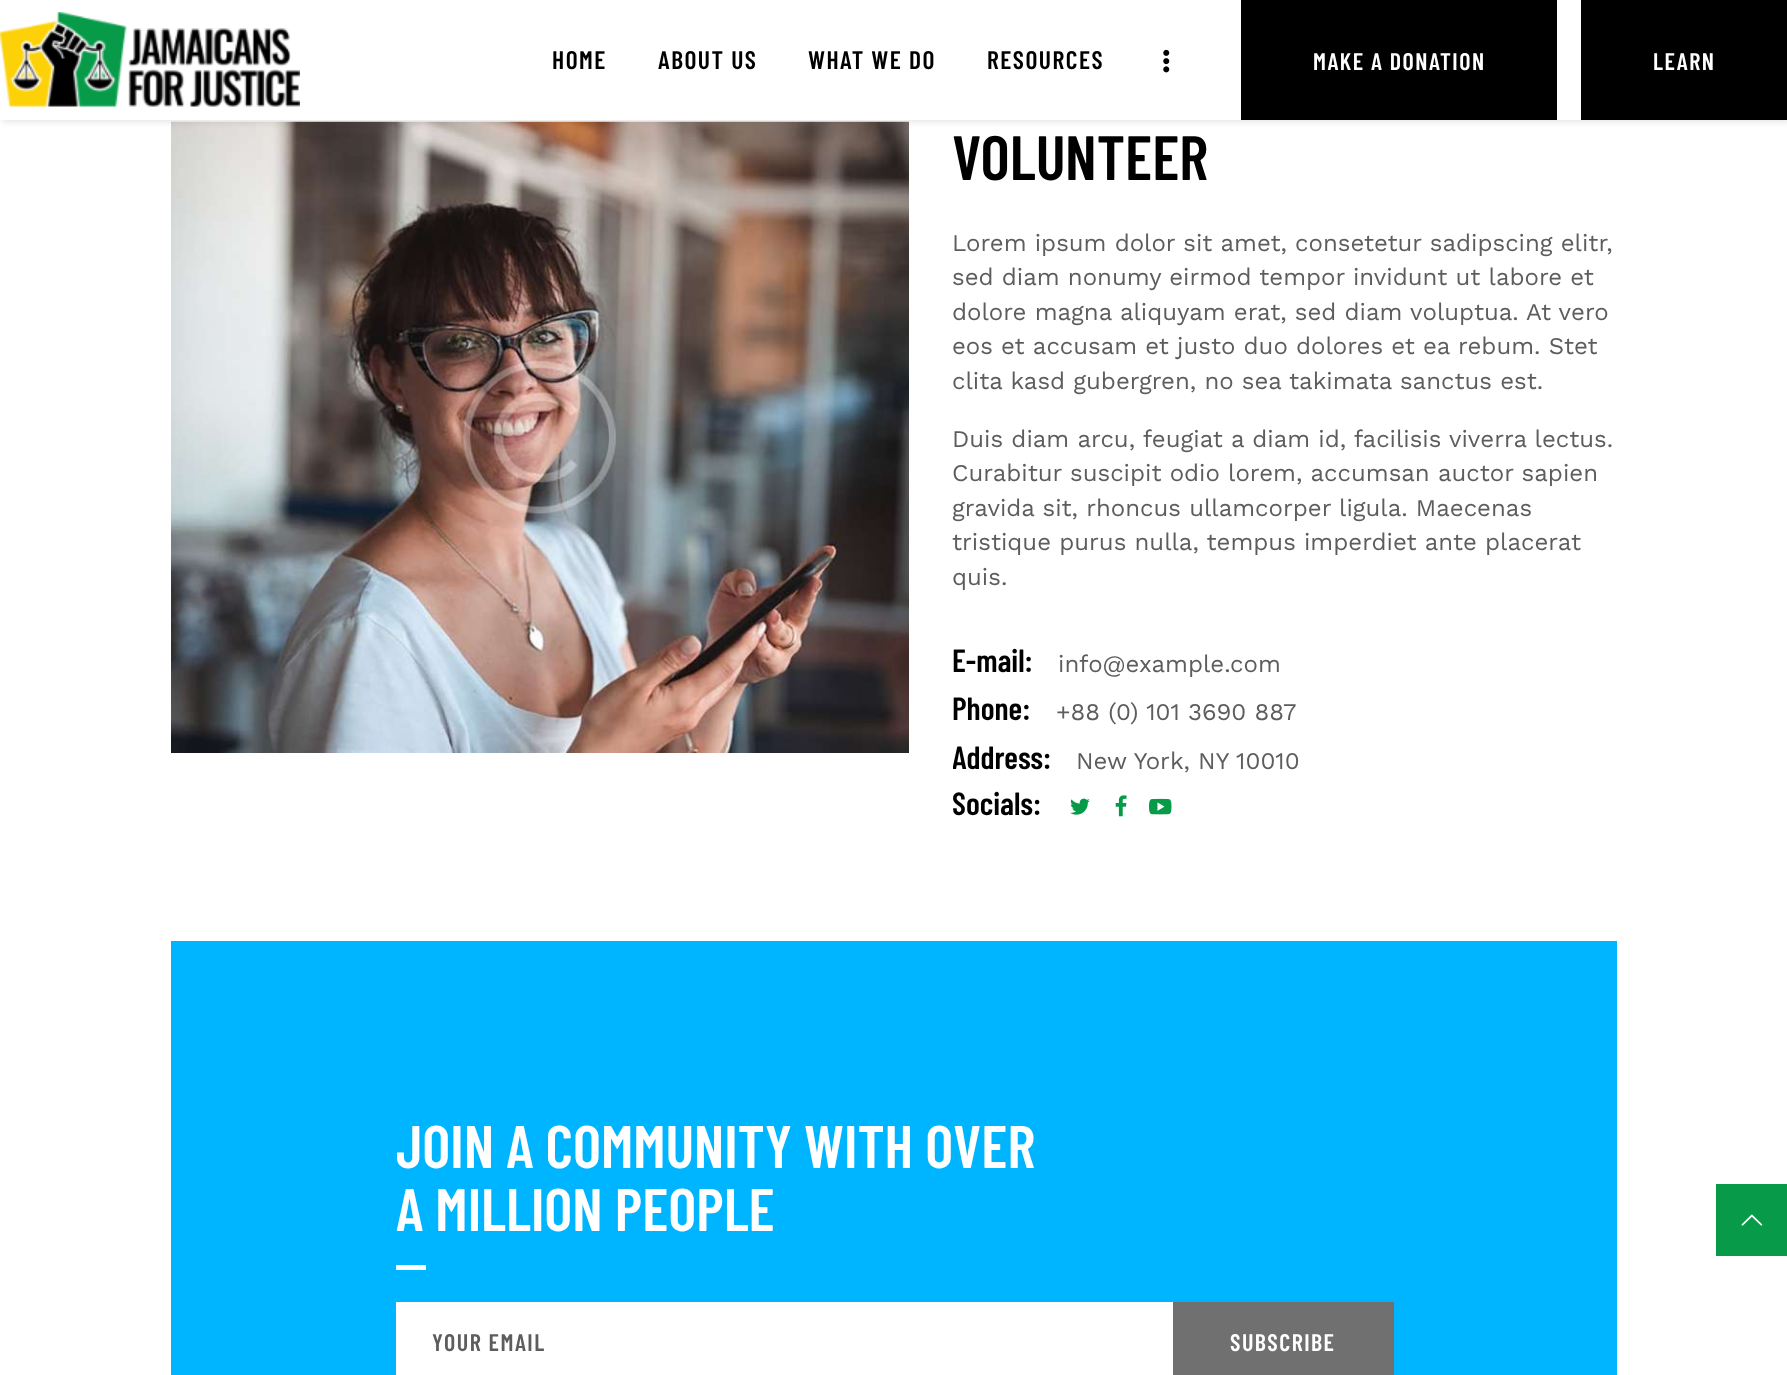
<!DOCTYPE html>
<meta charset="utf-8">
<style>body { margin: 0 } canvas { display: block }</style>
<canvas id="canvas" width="1787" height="1375"></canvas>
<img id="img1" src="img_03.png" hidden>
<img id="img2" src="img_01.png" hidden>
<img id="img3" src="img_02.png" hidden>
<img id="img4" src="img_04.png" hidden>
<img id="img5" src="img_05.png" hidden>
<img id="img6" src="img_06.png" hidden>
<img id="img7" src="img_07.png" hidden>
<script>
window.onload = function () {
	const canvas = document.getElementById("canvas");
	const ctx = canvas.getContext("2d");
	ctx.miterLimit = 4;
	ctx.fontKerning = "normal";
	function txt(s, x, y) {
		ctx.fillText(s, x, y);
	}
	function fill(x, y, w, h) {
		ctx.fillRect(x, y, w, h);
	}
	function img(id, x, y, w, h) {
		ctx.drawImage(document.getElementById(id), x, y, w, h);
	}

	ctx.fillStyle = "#FFFFFF";
	fill(0, 0, 1787, 1375);
	img("img1", 171, 121, 738, 632);
	ctx.fillStyle = "rgba(0, 0, 0, 0.1)";
	ctx.filter = "blur(3px)";
	ctx.beginPath();
	ctx.rect(2, 2, 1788, 120);
	ctx.fill();
	ctx.filter = "none";
	ctx.fillStyle = "#FFFFFF";
	fill(0, 0, 1581, 120);
	img("img2", 0, 12, 300, 95);
	img("img3", 1163, 49, 7, 24);
	ctx.fillStyle = "#000000";
	fill(1241, 0, 316, 120);
	fill(1581, 0, 206, 120);
	img("img4", 1070, 798, 20, 17);
	img("img5", 1115, 795, 12, 22);
	img("img6", 1149, 798, 23, 17);
	ctx.fillStyle = "#00B5FF";
	fill(171, 941, 1446, 434);
	ctx.fillStyle = "#FFFFFF";
	fill(396, 1265, 30, 5);
	fill(396, 1302, 777, 73);
	ctx.fillStyle = "#707070";
	fill(1173, 1302, 221, 73);
	ctx.fillStyle = "#079B49";
	fill(1716, 1184, 71, 72);
	img("img7", 1741, 1214, 22, 12);
	ctx.letterSpacing = "1.5px";
	ctx.font = "600 25.5px Barlow Condensed";
	ctx.fillStyle = "#000000";
	txt("HOME", 552, 69);
	txt("ABOUT US", 658, 69);
	txt("WHAT WE DO", 808, 69);
	txt("RESOURCES", 987, 69);
	ctx.font = "600 24px Barlow Condensed";
	ctx.fillStyle = "#FFFFFF";
	txt("MAKE A DONATION", 1313, 70);
	txt("LEARN", 1653, 70);
	ctx.letterSpacing = "0px";
	ctx.font = "600 62.5px Barlow Condensed";
	ctx.fillStyle = "#000000";
	txt("VOLUNTEER", 952, 180);
	ctx.font = "24px Work Sans";
	ctx.fillStyle = "#5D5D5D";
	txt("Lorem ipsum dolor sit amet, consetetur sadipscing elitr,", 952, 251);
	txt("sed diam nonumy eirmod tempor invidunt ut labore et", 952, 285);
	txt("dolore magna aliquyam erat, sed diam voluptua. At vero", 952, 320);
	txt("eos et accusam et justo duo dolores et ea rebum. Stet", 952, 354);
	txt("clita kasd gubergren, no sea takimata sanctus est.", 952, 389);
	txt("Duis diam arcu, feugiat a diam id, facilisis viverra lectus.", 952, 447);
	txt("Curabitur suscipit odio lorem, accumsan auctor sapien", 952, 481);
	txt("gravida sit, rhoncus ullamcorper ligula. Maecenas", 952, 516);
	txt("tristique purus nulla, tempus imperdiet ante placerat", 952, 550);
	txt("quis.", 952, 585);
	ctx.font = "600 32px Barlow Condensed";
	ctx.fillStyle = "#000000";
	txt("E-mail:", 952, 672);
	ctx.font = "24px Work Sans";
	ctx.fillStyle = "#5D5D5D";
	txt("info@example.com", 1058, 672);
	ctx.font = "600 32px Barlow Condensed";
	ctx.fillStyle = "#000000";
	txt("Phone:", 952, 720);
	ctx.font = "24px Work Sans";
	ctx.fillStyle = "#5D5D5D";
	txt("+88 (0) 101 3690 887", 1056, 720);
	ctx.save();
	ctx.beginPath();
	ctx.rect(953, 122, 664, 699);
	ctx.clip();
	ctx.font = "600 32px Barlow Condensed";
	ctx.fillStyle = "#000000";
	txt("Address:", 952, 769);
	ctx.restore();
	txt("New York, NY 10010", 1076, 769);
	ctx.save();
	ctx.beginPath();
	ctx.rect(953, 122, 664, 699);
	ctx.clip();
	ctx.font = "600 32px Barlow Condensed";
	ctx.fillStyle = "#000000";
	txt("Socials:", 952, 815);
	ctx.restore();
	ctx.font = "600 60px Barlow Condensed";
	ctx.fillStyle = "#FFFFFF";
	txt("JOIN A COMMUNITY WITH OVER", 396, 1168);
	txt("A MILLION PEOPLE", 396, 1231);
	ctx.letterSpacing = "1.5px";
	ctx.font = "600 24px Barlow Condensed";
	ctx.fillStyle = "#5D5D5D";
	txt("YOUR EMAIL", 432, 1351);
	ctx.fillStyle = "#FFFFFF";
	txt("SUBSCRIBE", 1230, 1351);
};
</script>
